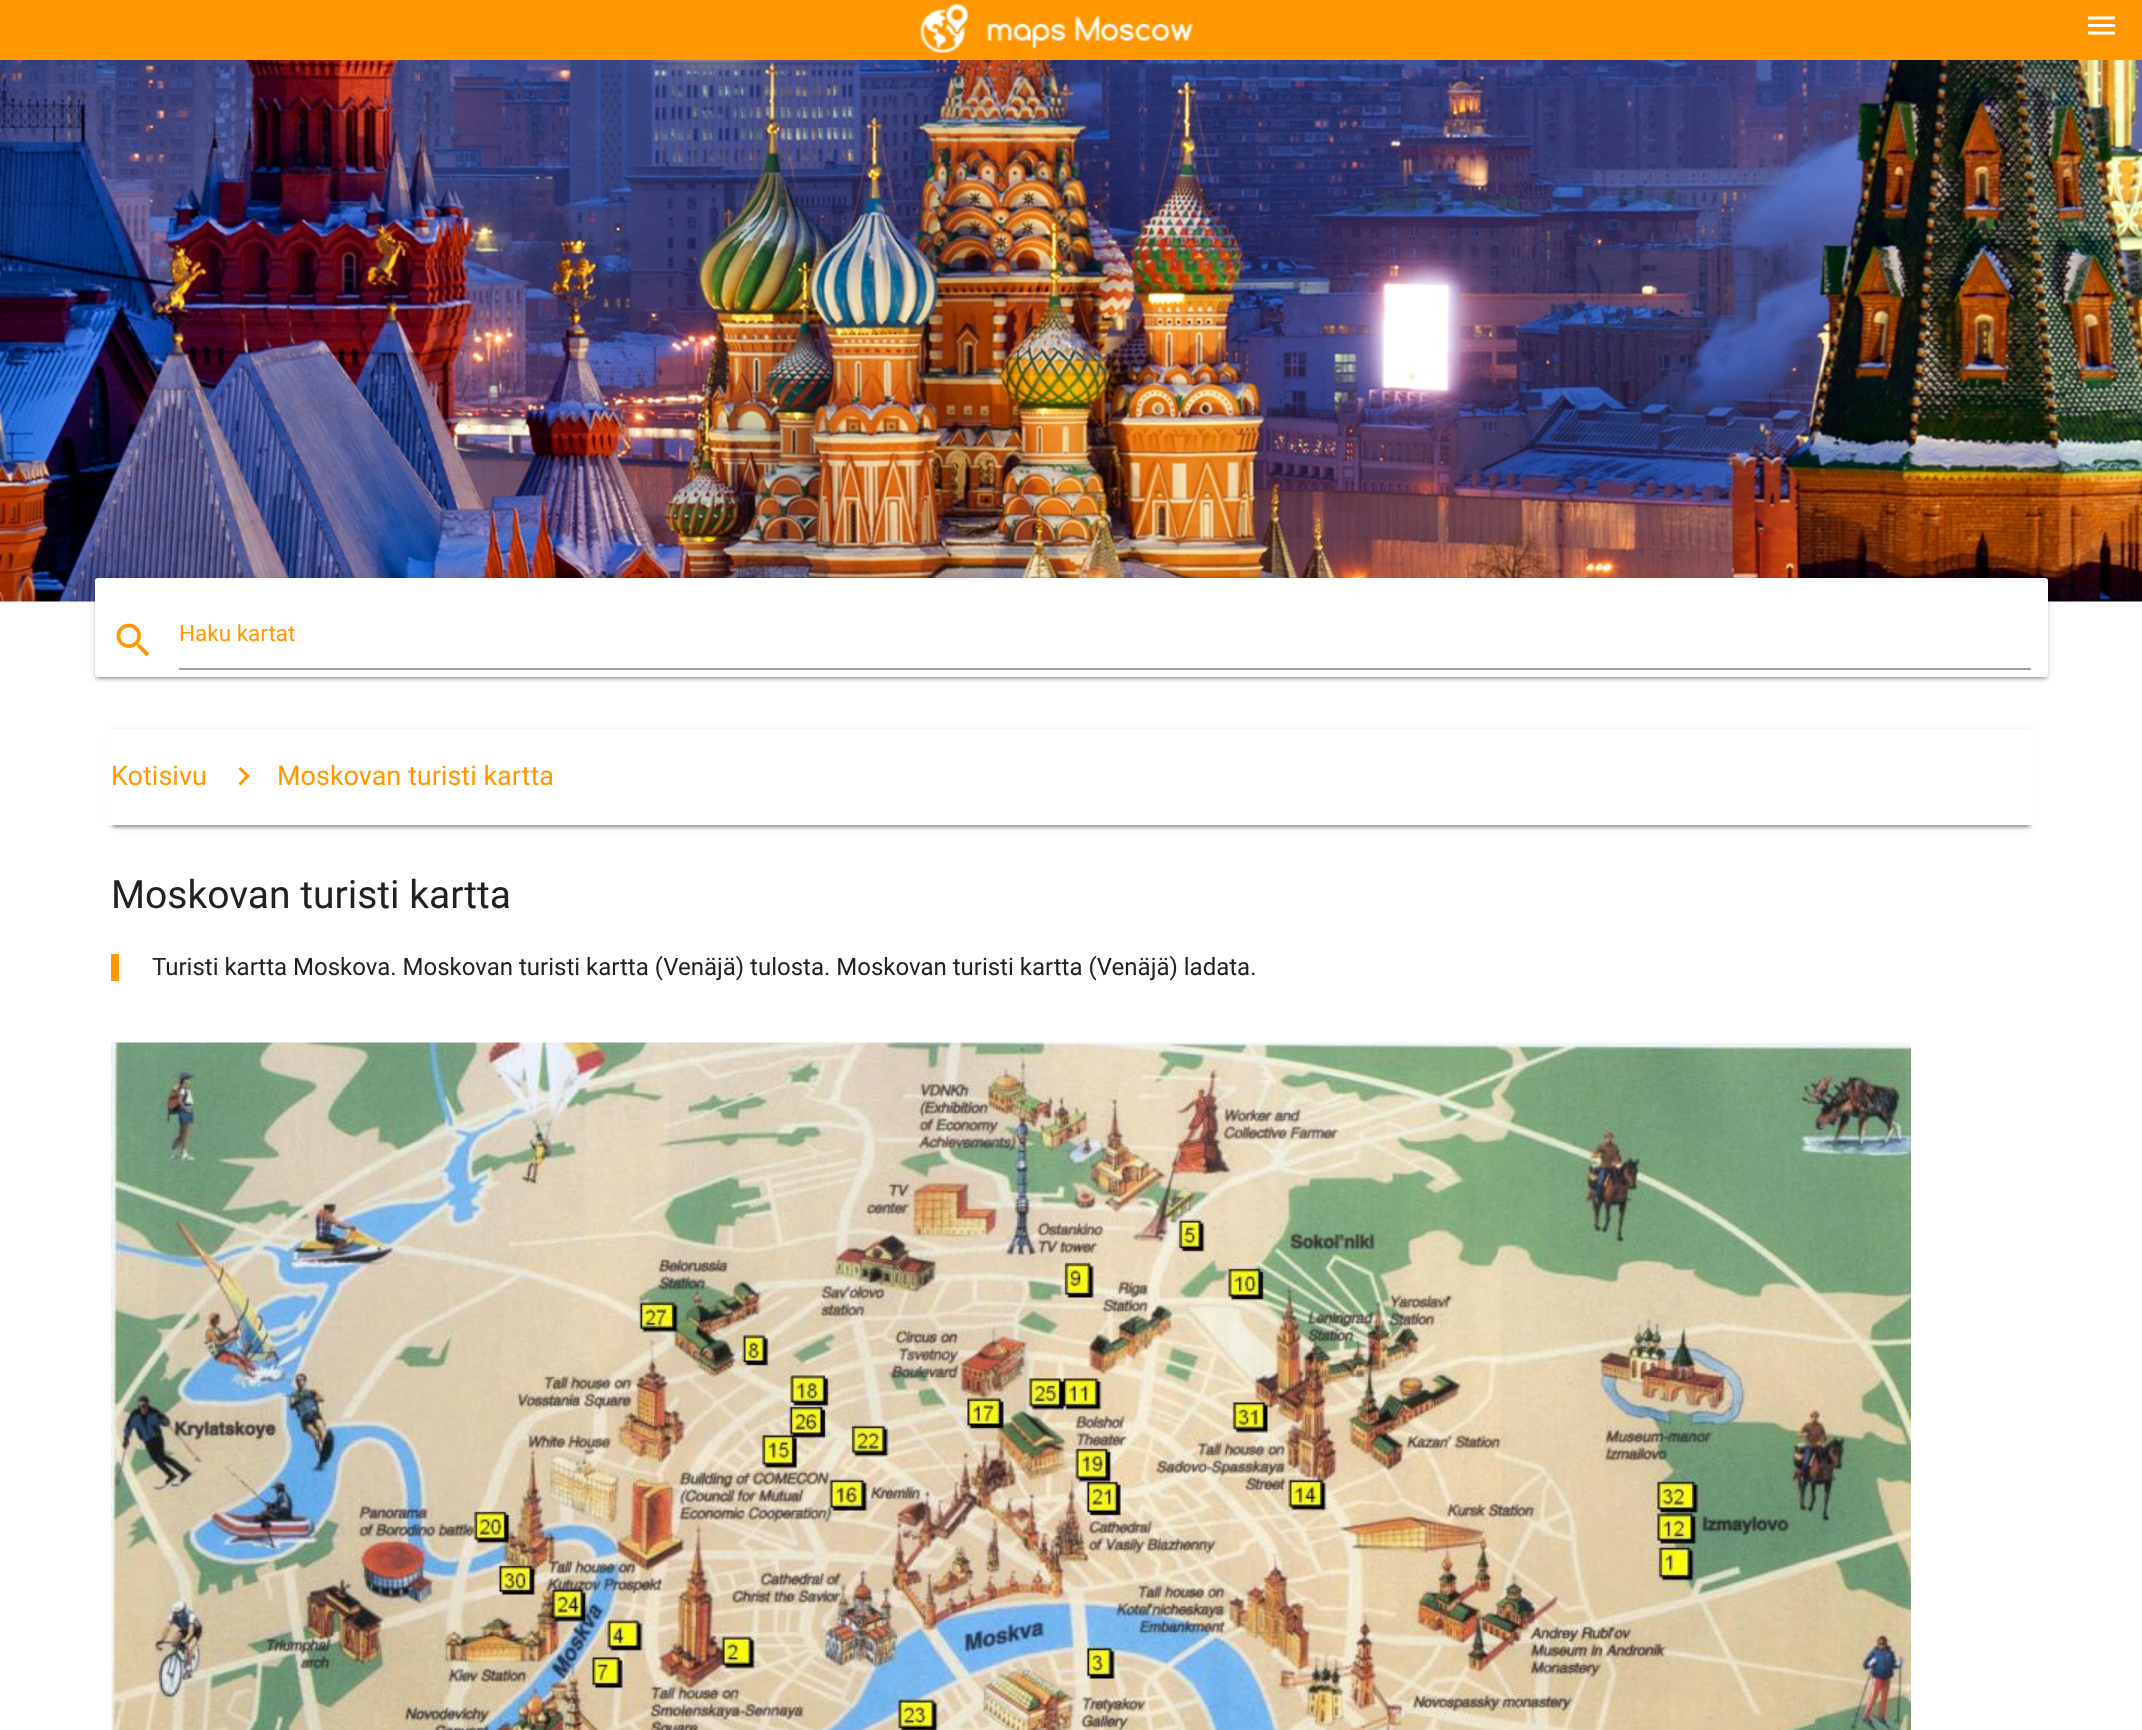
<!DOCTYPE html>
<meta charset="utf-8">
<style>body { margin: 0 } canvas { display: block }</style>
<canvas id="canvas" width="2142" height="1730"></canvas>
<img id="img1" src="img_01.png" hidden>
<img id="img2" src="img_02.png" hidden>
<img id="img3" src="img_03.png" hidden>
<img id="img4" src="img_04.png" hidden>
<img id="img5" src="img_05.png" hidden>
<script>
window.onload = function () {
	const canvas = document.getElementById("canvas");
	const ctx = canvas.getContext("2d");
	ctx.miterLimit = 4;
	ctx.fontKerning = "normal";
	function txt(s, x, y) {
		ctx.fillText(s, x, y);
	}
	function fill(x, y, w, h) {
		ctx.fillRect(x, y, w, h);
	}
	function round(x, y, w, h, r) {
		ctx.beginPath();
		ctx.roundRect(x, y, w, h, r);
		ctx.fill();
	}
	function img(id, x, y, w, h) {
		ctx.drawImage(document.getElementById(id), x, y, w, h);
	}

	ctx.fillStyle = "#FFFFFF";
	fill(0, 0, 2142, 1730);
	ctx.fillStyle = "#FF9800";
	fill(0, 0, 2142, 60);
	img("img1", 920, 4, 273, 49);
	img("img2", 2088, 16, 27, 19);
	img("img3", 0, 60, 2142, 542);
	ctx.fillStyle = "rgba(0, 0, 0, 0.2)";
	ctx.filter = "blur(1px)";
	ctx.beginPath();
	ctx.rect(98, 585, 1947, 93);
	ctx.fill();
	ctx.filter = "none";
	ctx.fillStyle = "rgba(0, 0, 0, 0.12)";
	ctx.filter = "blur(4px)";
	ctx.beginPath();
	ctx.roundRect(95, 579, 1953, 99, 3);
	ctx.fill();
	ctx.filter = "none";
	ctx.fillStyle = "rgba(0, 0, 0, 0.14)";
	ctx.filter = "blur(1.5px)";
	ctx.beginPath();
	ctx.roundRect(95, 581, 1953, 99, 3);
	ctx.fill();
	ctx.filter = "none";
	ctx.fillStyle = "#FFFFFF";
	round(95, 578, 1953, 99, 3);
	img("img4", 116, 623, 34, 34);
	ctx.fillStyle = "#9E9E9E";
	fill(179, 668, 1852, 2);
	ctx.fillStyle = "rgba(0, 0, 0, 0.2)";
	ctx.filter = "blur(1px)";
	ctx.beginPath();
	ctx.rect(114, 737, 1914, 90);
	ctx.fill();
	ctx.filter = "none";
	ctx.fillStyle = "rgba(0, 0, 0, 0.12)";
	ctx.filter = "blur(4px)";
	ctx.beginPath();
	ctx.rect(111, 731, 1920, 96);
	ctx.fill();
	ctx.filter = "none";
	ctx.fillStyle = "rgba(0, 0, 0, 0.14)";
	ctx.filter = "blur(1.5px)";
	ctx.beginPath();
	ctx.rect(111, 732, 1920, 96);
	ctx.fill();
	ctx.filter = "none";
	ctx.fillStyle = "#FFFFFF";
	fill(105, 729, 1932, 96);
	ctx.fillStyle = "#FF9800";
	ctx.beginPath();
	ctx.moveTo(240.5, 767);
	ctx.lineTo(250, 776);
	ctx.lineTo(240.5, 785.5);
	ctx.lineTo(238.5, 783.5);
	ctx.lineTo(245.5, 776);
	ctx.lineTo(238.5, 769);
	ctx.closePath();
	ctx.fill();
	fill(111, 954, 8, 27);
	img("img5", 111, 1042, 1800, 688);
	ctx.font = "22.5px Roboto";
	txt("Haku kartat", 179, 641);
	ctx.font = "27px Roboto";
	txt("Kotisivu", 111, 785);
	txt("Moskovan turisti kartta", 277, 785);
	ctx.font = "39px Roboto";
	ctx.fillStyle = "#212121";
	txt("Moskovan turisti kartta", 111, 908);
	ctx.font = "24px Roboto";
	txt("Turisti kartta Moskova. Moskovan turisti kartta (Venäjä) tulosta. Moskovan turisti kartta (Venäjä) ladata.", 152, 975);
};
</script>
